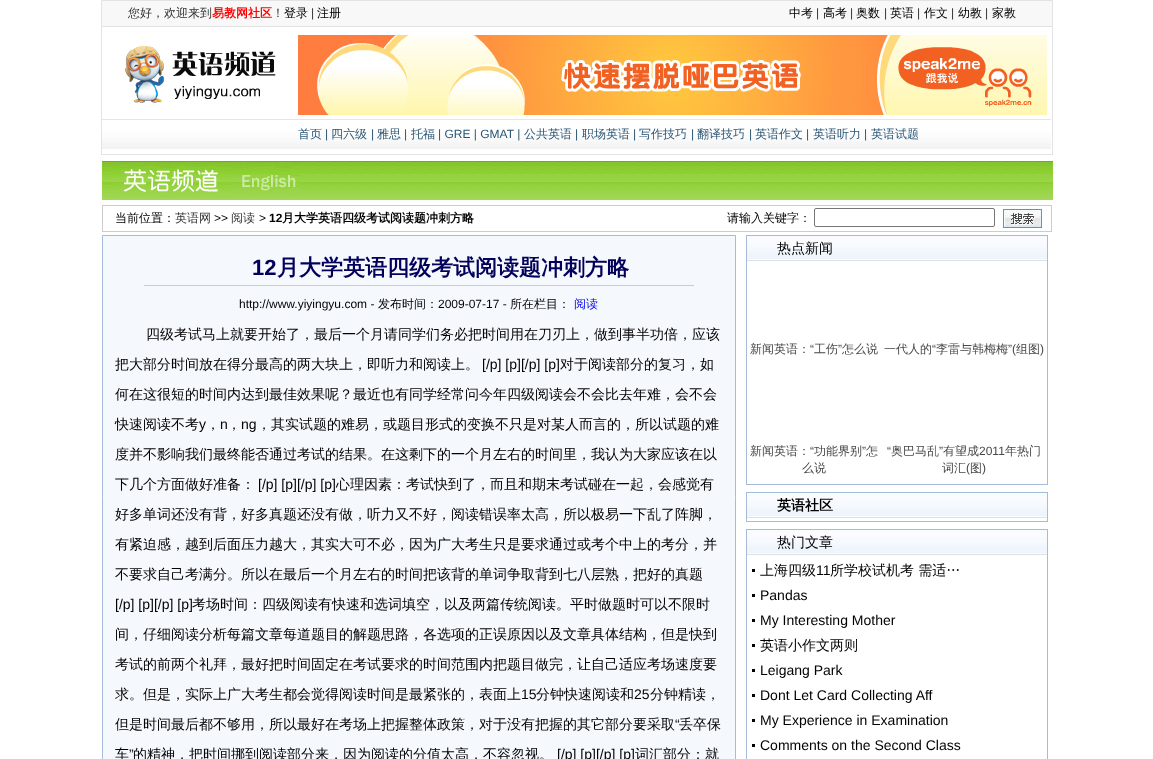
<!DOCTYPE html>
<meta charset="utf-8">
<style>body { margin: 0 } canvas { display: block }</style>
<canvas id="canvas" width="1153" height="759"></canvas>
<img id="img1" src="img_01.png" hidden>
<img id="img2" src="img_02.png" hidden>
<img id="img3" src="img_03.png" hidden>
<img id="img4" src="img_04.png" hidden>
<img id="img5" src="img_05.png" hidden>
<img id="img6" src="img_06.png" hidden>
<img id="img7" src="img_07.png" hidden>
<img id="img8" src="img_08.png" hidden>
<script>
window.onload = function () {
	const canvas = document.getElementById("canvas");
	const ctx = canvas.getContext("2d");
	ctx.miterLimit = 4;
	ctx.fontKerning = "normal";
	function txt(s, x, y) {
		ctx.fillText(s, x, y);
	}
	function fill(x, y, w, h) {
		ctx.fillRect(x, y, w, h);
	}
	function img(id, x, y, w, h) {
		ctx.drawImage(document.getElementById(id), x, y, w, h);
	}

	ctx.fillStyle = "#FFFFFF";
	fill(0, 0, 1153, 759);
	ctx.fillStyle = "#F8F8F8";
	ctx.beginPath();
	ctx.rect(101.5, 0.5, 951, 26);
	ctx.fill();
	ctx.strokeStyle = "#E3E3E3";
	ctx.stroke();
	ctx.fillStyle = "#E3E3E3";
	fill(1052, 27, 1, 128);
	fill(101, 154, 952, 1);
	fill(101, 27, 1, 128);
	img("img1", 124, 46, 152, 57);
	img("img2", 298, 35, 749, 80);
	img("img3", 102, 119, 196, 30);
	img("img4", 298, 119, 753, 30);
	img("img5", 102, 161, 199, 39);
	img("img6", 301, 161, 752, 39);
	ctx.strokeStyle = "#CCCCCC";
	ctx.strokeRect(102.5, 205.5, 949, 26);
	ctx.beginPath();
	ctx.roundRect(814.5, 208.5, 180, 18, 1.5);
	ctx.strokeStyle = "#767676";
	ctx.stroke();
	img("img7", 1003, 209, 39, 19);
	ctx.fillStyle = "#F5F8FD";
	ctx.beginPath();
	ctx.rect(102.5, 235.5, 633, 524);
	ctx.fill();
	ctx.strokeStyle = "#A6BBDA";
	ctx.stroke();
	ctx.fillStyle = "#BECDE5";
	fill(144, 285, 550, 1);
	ctx.strokeRect(746.5, 235.5, 301, 249);
	img("img8", 747, 236, 300, 25);
	ctx.strokeRect(746.5, 492.5, 301, 29);
	img("img8", 747, 493, 300, 25);
	ctx.strokeRect(746.5, 529.5, 301, 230);
	img("img8", 747, 530, 300, 25);
	ctx.fillStyle = "#000000";
	fill(752, 569, 3, 3);
	fill(752, 594, 3, 3);
	fill(752, 619, 3, 3);
	fill(752, 644, 3, 3);
	fill(752, 669, 3, 3);
	fill(752, 694, 3, 3);
	fill(752, 719, 3, 3);
	fill(752, 744, 3, 3);
	ctx.font = "500 12px WenQuanYi Zen Hei";
	ctx.fillStyle = "#323232";
	txt("您好，欢迎来到", 128, 17);
	ctx.font = "bold 12px WenQuanYi Zen Hei";
	ctx.fillStyle = "#FF0000";
	txt("易教网社区", 212, 17);
	ctx.font = "500 12px WenQuanYi Zen Hei";
	ctx.fillStyle = "#323232";
	txt("！", 272, 17);
	ctx.fillStyle = "#000000";
	txt("登录", 284, 17);
	ctx.font = "12px Liberation Sans";
	ctx.fillStyle = "#323232";
	txt("|", 311, 17);
	ctx.font = "500 12px WenQuanYi Zen Hei";
	ctx.fillStyle = "#000000";
	txt("注册", 317, 17);
	txt("中考", 789, 17);
	ctx.font = "12px Liberation Sans";
	ctx.fillStyle = "#323232";
	txt("|", 816, 17);
	ctx.font = "500 12px WenQuanYi Zen Hei";
	ctx.fillStyle = "#000000";
	txt("高考", 823, 17);
	ctx.font = "12px Liberation Sans";
	ctx.fillStyle = "#323232";
	txt("|", 850, 17);
	ctx.font = "500 12px WenQuanYi Zen Hei";
	ctx.fillStyle = "#000000";
	txt("奥数", 856, 17);
	ctx.font = "12px Liberation Sans";
	ctx.fillStyle = "#323232";
	txt("|", 884, 17);
	ctx.font = "500 12px WenQuanYi Zen Hei";
	ctx.fillStyle = "#000000";
	txt("英语", 890, 17);
	ctx.font = "12px Liberation Sans";
	ctx.fillStyle = "#323232";
	txt("|", 917, 17);
	ctx.font = "500 12px WenQuanYi Zen Hei";
	ctx.fillStyle = "#000000";
	txt("作文", 924, 17);
	ctx.font = "12px Liberation Sans";
	ctx.fillStyle = "#323232";
	txt("|", 951, 17);
	ctx.font = "500 12px WenQuanYi Zen Hei";
	ctx.fillStyle = "#000000";
	txt("幼教", 958, 17);
	ctx.font = "12px Liberation Sans";
	ctx.fillStyle = "#323232";
	txt("|", 985, 17);
	ctx.font = "500 12px WenQuanYi Zen Hei";
	ctx.fillStyle = "#000000";
	txt("家教", 992, 17);
	ctx.fillStyle = "#295574";
	txt("首页", 298, 138);
	ctx.font = "12px Liberation Sans";
	txt("|", 325, 138);
	ctx.font = "500 12px WenQuanYi Zen Hei";
	txt("四六级", 331, 138);
	ctx.font = "12px Liberation Sans";
	txt("|", 371, 138);
	ctx.font = "500 12px WenQuanYi Zen Hei";
	txt("雅思", 377, 138);
	ctx.font = "12px Liberation Sans";
	txt("|", 404, 138);
	ctx.font = "500 12px WenQuanYi Zen Hei";
	txt("托福", 411, 138);
	ctx.font = "12px Liberation Sans";
	txt("| GRE | GMAT |", 438, 138);
	ctx.font = "500 12px WenQuanYi Zen Hei";
	txt("公共英语", 524, 138);
	ctx.font = "12px Liberation Sans";
	txt("|", 575, 138);
	ctx.font = "500 12px WenQuanYi Zen Hei";
	txt("职场英语", 582, 138);
	ctx.font = "12px Liberation Sans";
	txt("|", 633, 138);
	ctx.font = "500 12px WenQuanYi Zen Hei";
	txt("写作技巧", 639, 138);
	ctx.font = "12px Liberation Sans";
	txt("|", 691, 138);
	ctx.font = "500 12px WenQuanYi Zen Hei";
	txt("翻译技巧", 697, 138);
	ctx.font = "12px Liberation Sans";
	txt("|", 749, 138);
	ctx.font = "500 12px WenQuanYi Zen Hei";
	txt("英语作文", 755, 138);
	ctx.font = "12px Liberation Sans";
	txt("|", 806, 138);
	ctx.font = "500 12px WenQuanYi Zen Hei";
	txt("英语听力", 813, 138);
	ctx.font = "12px Liberation Sans";
	txt("|", 864, 138);
	ctx.font = "500 12px WenQuanYi Zen Hei";
	txt("英语试题", 871, 138);
	ctx.fillStyle = "#000000";
	txt("当前位置：", 115, 222);
	ctx.fillStyle = "#323232";
	txt("英语网", 175, 222);
	ctx.font = "12px Liberation Sans";
	ctx.fillStyle = "#000000";
	txt(">>", 214, 222);
	ctx.font = "500 12px WenQuanYi Zen Hei";
	ctx.fillStyle = "#323232";
	txt("阅读", 231, 222);
	ctx.font = "12px Liberation Sans";
	ctx.fillStyle = "#000000";
	txt(">", 259, 222);
	ctx.font = "bold 12px Liberation Sans";
	txt("12", 269, 222);
	ctx.font = "bold 12px WenQuanYi Zen Hei";
	txt("月大学英语四级考试阅读题冲刺方略", 282, 222);
	ctx.font = "500 12px WenQuanYi Zen Hei";
	txt("请输入关键字：", 727, 222);
	ctx.font = "bold 22px Liberation Sans";
	ctx.fillStyle = "#03005C";
	txt("12", 252, 275);
	ctx.font = "bold 22px WenQuanYi Zen Hei";
	txt("月大学英语四级考试阅读题冲刺方略", 277, 275);
	ctx.font = "12px Liberation Sans";
	ctx.fillStyle = "#000000";
	txt("http://www.yiyingyu.com -", 239, 308);
	ctx.font = "500 12px WenQuanYi Zen Hei";
	txt("发布时间：", 378, 308);
	ctx.font = "12px Liberation Sans";
	txt("2009-07-17 -", 438, 308);
	ctx.font = "500 12px WenQuanYi Zen Hei";
	txt("所在栏目：", 510, 308);
	ctx.fillStyle = "#0000EE";
	txt("阅读", 574, 308);
	ctx.font = "500 14px WenQuanYi Zen Hei";
	ctx.fillStyle = "#000000";
	txt("四级考试马上就要开始了，最后一个月请同学们务必把时间用在刀刃上，做到事半功倍，应该", 146, 339);
	txt("把大部分时间放在得分最高的两大块上，即听力和阅读上。", 115, 369);
	ctx.font = "14px Liberation Sans";
	txt("[/p] [p][/p] [p]", 482, 369);
	ctx.font = "500 14px WenQuanYi Zen Hei";
	txt("对于阅读部分的复习，如", 560, 369);
	txt("何在这很短的时间内达到最佳效果呢？最近也有同学经常问今年四级阅读会不会比去年难，会不会", 115, 399);
	txt("快速阅读不考", 115, 429);
	ctx.font = "14px Liberation Sans";
	txt("y", 199, 429);
	ctx.font = "500 14px WenQuanYi Zen Hei";
	txt("，", 206, 429);
	ctx.font = "14px Liberation Sans";
	txt("n", 220, 429);
	ctx.font = "500 14px WenQuanYi Zen Hei";
	txt("，", 227, 429);
	ctx.font = "14px Liberation Sans";
	txt("ng", 241, 429);
	ctx.font = "500 14px WenQuanYi Zen Hei";
	txt("，其实试题的难易，或题目形式的变换不只是对某人而言的，所以试题的难", 257, 429);
	txt("度并不影响我们最终能否通过考试的结果。在这剩下的一个月左右的时间里，我认为大家应该在以", 115, 459);
	txt("下几个方面做好准备：", 115, 489);
	ctx.font = "14px Liberation Sans";
	txt("[/p] [p][/p] [p]", 258, 489);
	ctx.font = "500 14px WenQuanYi Zen Hei";
	txt("心理因素：考试快到了，而且和期末考试碰在一起，会感觉有", 336, 489);
	txt("好多单词还没有背，好多真题还没有做，听力又不好，阅读错误率太高，所以极易一下乱了阵脚，", 115, 519);
	txt("有紧迫感，越到后面压力越大，其实大可不必，因为广大考生只是要求通过或考个中上的考分，并", 115, 549);
	txt("不要求自己考满分。所以在最后一个月左右的时间把该背的单词争取背到七八层熟，把好的真题", 115, 579);
	ctx.font = "14px Liberation Sans";
	txt("[/p] [p][/p] [p]", 115, 609);
	ctx.font = "500 14px WenQuanYi Zen Hei";
	txt("考场时间：四级阅读有快速和选词填空，以及两篇传统阅读。平时做题时可以不限时", 192, 609);
	txt("间，仔细阅读分析每篇文章每道题目的解题思路，各选项的正误原因以及文章具体结构，但是快到", 115, 639);
	txt("考试的前两个礼拜，最好把时间固定在考试要求的时间范围内把题目做完，让自己适应考场速度要", 115, 669);
	txt("求。但是，实际上广大考生都会觉得阅读时间是最紧张的，表面上", 115, 699);
	ctx.font = "14px Liberation Sans";
	txt("15", 521, 699);
	ctx.font = "500 14px WenQuanYi Zen Hei";
	txt("分钟快速阅读和", 536, 699);
	ctx.font = "14px Liberation Sans";
	txt("25", 634, 699);
	ctx.font = "500 14px WenQuanYi Zen Hei";
	txt("分钟精读，", 650, 699);
	txt("但是时间最后都不够用，所以最好在考场上把握整体政策，对于没有把握的其它部分要采取", 115, 729);
	ctx.font = "14px Liberation Sans";
	txt("“", 675, 729);
	ctx.font = "500 14px WenQuanYi Zen Hei";
	txt("丢卒保", 679, 729);
	txt("车", 115, 759);
	ctx.font = "14px Liberation Sans";
	txt("”", 129, 759);
	ctx.font = "500 14px WenQuanYi Zen Hei";
	txt("的精神，把时间挪到阅读部分来，因为阅读的分值太高，不容忽视。", 133, 759);
	ctx.font = "14px Liberation Sans";
	txt("[/p] [p][/p] [p]", 557, 759);
	ctx.font = "500 14px WenQuanYi Zen Hei";
	txt("词汇部分：就", 635, 759);
	txt("热点新闻", 777, 253);
	ctx.font = "500 12px WenQuanYi Zen Hei";
	ctx.fillStyle = "#474747";
	txt("新闻英语：", 750, 353);
	ctx.font = "12px Liberation Sans";
	txt("“", 810, 353);
	ctx.font = "500 12px WenQuanYi Zen Hei";
	txt("工伤", 814, 353);
	ctx.font = "12px Liberation Sans";
	txt("”", 838, 353);
	ctx.font = "500 12px WenQuanYi Zen Hei";
	txt("怎么说", 842, 353);
	txt("一代人的", 884, 353);
	ctx.font = "12px Liberation Sans";
	txt("“", 932, 353);
	ctx.font = "500 12px WenQuanYi Zen Hei";
	txt("李雷与韩梅梅", 936, 353);
	ctx.font = "12px Liberation Sans";
	txt("”(", 1008, 353);
	ctx.font = "500 12px WenQuanYi Zen Hei";
	txt("组图", 1016, 353);
	ctx.font = "12px Liberation Sans";
	txt(")", 1040, 353);
	ctx.font = "500 12px WenQuanYi Zen Hei";
	txt("新闻英语：", 750, 455);
	ctx.font = "12px Liberation Sans";
	txt("“", 810, 455);
	ctx.font = "500 12px WenQuanYi Zen Hei";
	txt("功能界别", 814, 455);
	ctx.font = "12px Liberation Sans";
	txt("”", 862, 455);
	ctx.font = "500 12px WenQuanYi Zen Hei";
	txt("怎", 866, 455);
	txt("么说", 802, 472);
	ctx.font = "12px Liberation Sans";
	txt("“", 887, 455);
	ctx.font = "500 12px WenQuanYi Zen Hei";
	txt("奥巴马乱", 891, 455);
	ctx.font = "12px Liberation Sans";
	txt("”", 939, 455);
	ctx.font = "500 12px WenQuanYi Zen Hei";
	txt("有望成", 943, 455);
	ctx.font = "12px Liberation Sans";
	txt("2011", 979, 455);
	ctx.font = "500 12px WenQuanYi Zen Hei";
	txt("年热门", 1005, 455);
	txt("词汇", 942, 472);
	ctx.font = "12px Liberation Sans";
	txt("(", 966, 472);
	ctx.font = "500 12px WenQuanYi Zen Hei";
	txt("图", 970, 472);
	ctx.font = "12px Liberation Sans";
	txt(")", 982, 472);
	ctx.font = "bold 14px WenQuanYi Zen Hei";
	ctx.fillStyle = "#000000";
	txt("英语社区", 777, 510);
	ctx.font = "500 14px WenQuanYi Zen Hei";
	txt("热门文章", 777, 547);
	txt("上海四级", 760, 575);
	ctx.font = "14px Liberation Sans";
	txt("11", 816, 575);
	ctx.font = "500 14px WenQuanYi Zen Hei";
	txt("所学校试机考 需适…", 830, 575);
	ctx.font = "14px Liberation Sans";
	txt("Pandas", 760, 600);
	txt("My Interesting Mother", 760, 625);
	ctx.font = "500 14px WenQuanYi Zen Hei";
	txt("英语小作文两则", 760, 650);
	ctx.font = "14px Liberation Sans";
	txt("Leigang Park", 760, 675);
	txt("Dont Let Card Collecting Aff", 760, 700);
	txt("My Experience in Examination", 760, 725);
	txt("Comments on the Second Class", 760, 750);
};
</script>
